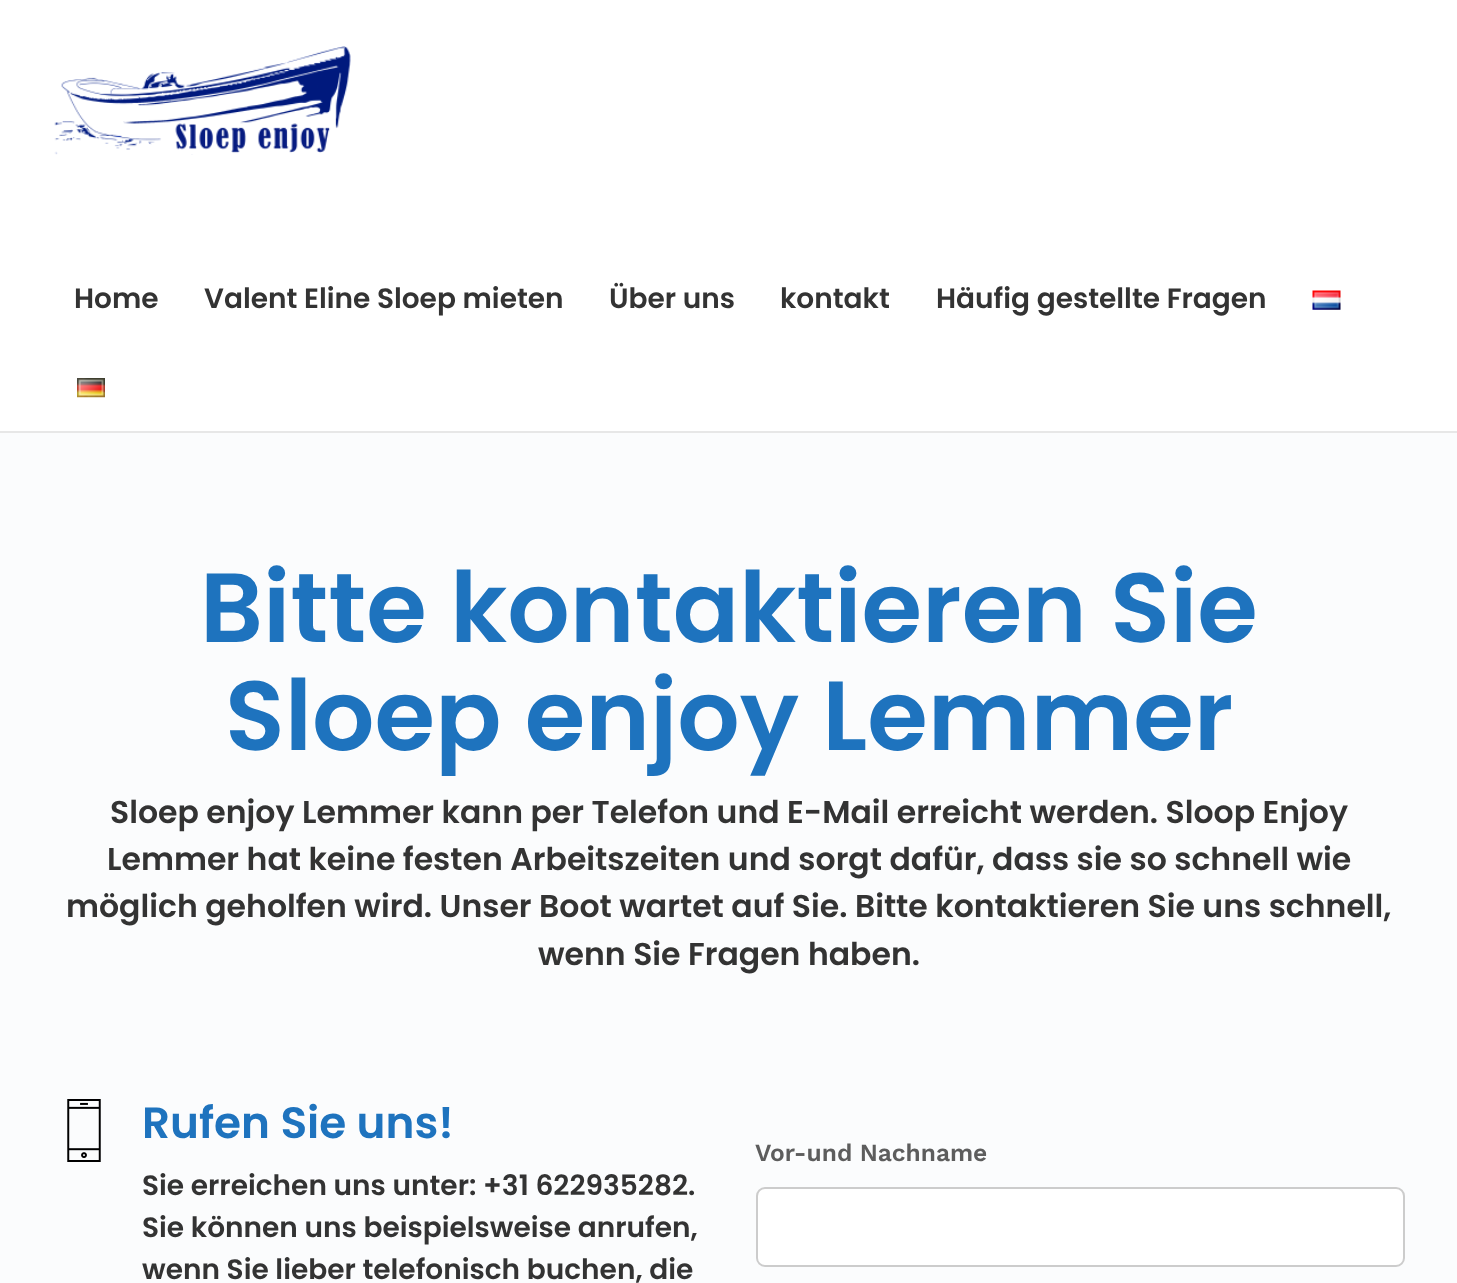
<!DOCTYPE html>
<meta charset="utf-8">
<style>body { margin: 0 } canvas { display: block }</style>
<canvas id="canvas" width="1457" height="1283"></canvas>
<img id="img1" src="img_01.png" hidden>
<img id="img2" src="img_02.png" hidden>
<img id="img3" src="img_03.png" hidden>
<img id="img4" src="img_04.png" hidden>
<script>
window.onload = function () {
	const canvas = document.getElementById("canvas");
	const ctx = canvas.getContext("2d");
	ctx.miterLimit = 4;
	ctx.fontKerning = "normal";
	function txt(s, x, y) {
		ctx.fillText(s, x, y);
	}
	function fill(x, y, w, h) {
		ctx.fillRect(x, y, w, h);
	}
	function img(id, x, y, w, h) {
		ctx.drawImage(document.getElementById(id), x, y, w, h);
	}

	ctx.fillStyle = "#FBFCFD";
	fill(0, 0, 1457, 1283);
	ctx.fillStyle = "#FFFFFF";
	fill(0, 0, 1457, 431);
	ctx.fillStyle = "#E7E7E7";
	fill(0, 431, 1457, 2);
	img("img1", 54, 46, 297, 109);
	img("img2", 1312, 290, 29, 20);
	img("img3", 77, 378, 28, 20);
	img("img4", 67, 1099, 34, 63);
	ctx.fillStyle = "#FFFFFF";
	ctx.beginPath();
	ctx.roundRect(757, 1188, 647, 78, 8);
	ctx.fill();
	ctx.strokeStyle = "#CCCCCC";
	ctx.lineWidth = 2;
	ctx.stroke();
	ctx.font = "600 28px Poppins";
	ctx.fillStyle = "#333333";
	txt("Home", 74, 308);
	txt("Valent Eline Sloep mieten", 204, 308);
	txt("Über uns", 609, 308);
	txt("kontakt", 780, 308);
	txt("Häufig gestellte Fragen", 936, 308);
	ctx.font = "600 98px Poppins";
	ctx.fillStyle = "#1E73BE";
	txt("Bitte kontaktieren Sie", 200, 642);
	txt("Sloep enjoy Lemmer", 225, 750);
	ctx.font = "600 31.5px Poppins";
	ctx.fillStyle = "#333333";
	txt("Sloep enjoy Lemmer kann per Telefon und E-Mail erreicht werden. Sloop Enjoy", 110, 823);
	txt("Lemmer hat keine festen Arbeitszeiten und sorgt dafür, dass sie so schnell wie", 107, 870);
	txt("möglich geholfen wird. Unser Boot wartet auf Sie. Bitte kontaktieren Sie uns schnell,", 66, 917);
	txt("wenn Sie Fragen haben.", 538, 965);
	ctx.font = "600 43.75px Poppins";
	ctx.fillStyle = "#1E73BE";
	txt("Rufen Sie uns!", 142, 1138);
	ctx.font = "600 28px Poppins";
	ctx.fillStyle = "#333333";
	txt("Sie erreichen uns unter: +31 622935282.", 142, 1195);
	txt("Sie können uns beispielsweise anrufen,", 142, 1237);
	txt("wenn Sie lieber telefonisch buchen, die", 142, 1279);
	ctx.font = "600 24.5px Work Sans";
	ctx.fillStyle = "#5D5D5D";
	txt("Vor-und Nachname", 755, 1161);
};
</script>
